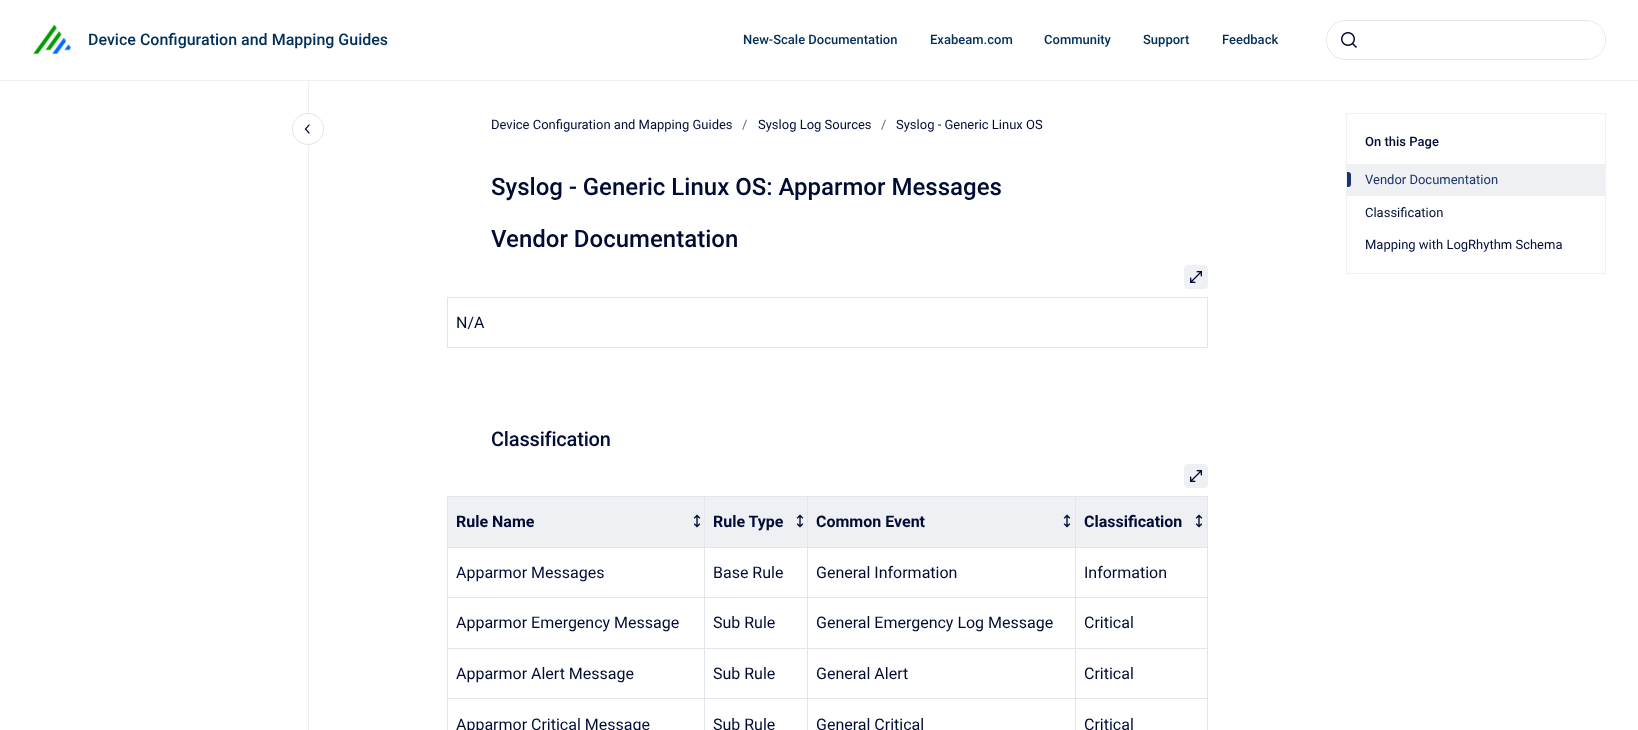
<!DOCTYPE html>
<meta charset="utf-8">
<style>body { margin: 0 } canvas { display: block }</style>
<canvas id="canvas" width="1638" height="730"></canvas>
<img id="img1" src="img_01.png" hidden>
<img id="img2" src="img_02.png" hidden>
<img id="img3" src="img_03.png" hidden>
<img id="img4" src="img_04.png" hidden>
<script>
window.onload = function () {
	const canvas = document.getElementById("canvas");
	const ctx = canvas.getContext("2d");
	ctx.miterLimit = 4;
	ctx.fontKerning = "normal";
	function txt(s, x, y) {
		ctx.fillText(s, x, y);
	}
	function fill(x, y, w, h) {
		ctx.fillRect(x, y, w, h);
	}
	function round(x, y, w, h, r) {
		ctx.beginPath();
		ctx.roundRect(x, y, w, h, r);
		ctx.fill();
	}
	function img(id, x, y, w, h) {
		ctx.drawImage(document.getElementById(id), x, y, w, h);
	}

	ctx.fillStyle = "#FFFFFF";
	fill(0, 0, 1638, 730);
	ctx.fillStyle = "#EFF0F4";
	fill(0, 80, 1638, 1);
	img("img1", 33, 24, 39, 31);
	ctx.beginPath();
	ctx.roundRect(1326.5, 20.5, 279, 39, 19.5);
	ctx.strokeStyle = "#E2E5EB";
	ctx.stroke();
	ctx.fillStyle = "#FFFFFF";
	round(1327, 21, 278, 38, 19);
	img("img2", 1341, 32, 16, 16);
	ctx.fillStyle = "#EFF0F4";
	fill(308, 81, 1, 649);
	ctx.fillStyle = "#FFFFFF";
	ctx.beginPath();
	ctx.moveTo(308, 145);
	ctx.bezierCurveTo(299, 145, 292, 138, 292, 129);
	ctx.bezierCurveTo(292, 120, 299, 113, 308, 113);
	ctx.bezierCurveTo(317, 113, 324, 120, 324, 129);
	ctx.bezierCurveTo(324, 138, 317, 145, 308, 145);
	ctx.closePath();
	ctx.fill();
	ctx.beginPath();
	ctx.moveTo(308, 144.5);
	ctx.bezierCurveTo(299.5, 144.5, 292.5, 137.5, 292.5, 129);
	ctx.bezierCurveTo(292.5, 120.5, 299.5, 113.5, 308, 113.5);
	ctx.bezierCurveTo(316.5, 113.5, 323.5, 120.5, 323.5, 129);
	ctx.bezierCurveTo(323.5, 137.5, 316.5, 144.5, 308, 144.5);
	ctx.closePath();
	ctx.stroke();
	ctx.beginPath();
	ctx.moveTo(309, 133);
	ctx.lineTo(305.5, 129);
	ctx.lineTo(309, 125);
	ctx.strokeStyle = "#000C34";
	ctx.lineWidth = 1.2;
	ctx.lineCap = "square";
	ctx.stroke();
	ctx.fillStyle = "#EFF0F4";
	ctx.beginPath();
	ctx.roundRect(1184.5, 265.5, 23, 23, 3.5);
	ctx.fill();
	ctx.strokeStyle = "#EFF0F4";
	ctx.lineWidth = 1;
	ctx.stroke();
	img("img3", 1190, 271, 12, 12);
	ctx.fillStyle = "#E2E5EB";
	fill(447, 297, 761, 1);
	fill(1207, 297, 1, 51);
	fill(447, 347, 761, 1);
	fill(447, 297, 1, 51);
	ctx.fillStyle = "#EFF0F4";
	ctx.beginPath();
	ctx.roundRect(1184.5, 464.5, 23, 23, 3.5);
	ctx.fill();
	ctx.stroke();
	img("img3", 1190, 470, 12, 12);
	ctx.fillStyle = "#E2E5EB";
	fill(447, 496, 761, 1);
	fill(1207, 496, 1, 234);
	fill(447, 496, 1, 234);
	ctx.fillStyle = "#EFF0F4";
	fill(448, 497, 256, 50);
	img("img4", 693, 514, 8, 14);
	fill(705, 497, 102, 50);
	img("img4", 796, 514, 8, 14);
	ctx.fillStyle = "#E2E5EB";
	fill(1075, 547, 133, 1);
	fill(1075, 597, 133, 1);
	fill(1075, 648, 133, 1);
	fill(1075, 698, 133, 1);
	fill(1075, 698, 1, 32);
	fill(807, 698, 269, 1);
	fill(1075, 648, 1, 51);
	fill(807, 648, 269, 1);
	fill(1075, 597, 1, 52);
	fill(807, 597, 269, 1);
	fill(1075, 547, 1, 51);
	fill(807, 547, 269, 1);
	fill(807, 698, 1, 32);
	fill(704, 698, 104, 1);
	fill(807, 648, 1, 51);
	fill(704, 648, 104, 1);
	fill(807, 597, 1, 52);
	fill(704, 597, 104, 1);
	fill(807, 547, 1, 51);
	fill(704, 547, 104, 1);
	fill(704, 698, 1, 32);
	fill(447, 698, 258, 1);
	fill(704, 648, 1, 51);
	fill(447, 648, 258, 1);
	fill(704, 597, 1, 52);
	fill(447, 597, 258, 1);
	fill(704, 547, 1, 51);
	fill(447, 547, 258, 1);
	fill(704, 496, 1, 52);
	ctx.fillStyle = "#EFF0F4";
	fill(808, 497, 267, 50);
	img("img4", 1063, 514, 8, 14);
	ctx.fillStyle = "#E2E5EB";
	fill(807, 496, 1, 52);
	ctx.fillStyle = "#EFF0F4";
	fill(1076, 497, 131, 50);
	img("img4", 1195, 514, 8, 14);
	ctx.fillStyle = "#E2E5EB";
	fill(1075, 496, 1, 52);
	ctx.beginPath();
	ctx.roundRect(1346.5, 113.5, 259, 160, 0.5);
	ctx.stroke();
	ctx.fillStyle = "#EFF0F4";
	fill(1347, 164, 258, 32);
	ctx.fillStyle = "#193468";
	ctx.beginPath();
	ctx.roundRect(1347, 172, 4, 15, [0, 3, 3, 0]);
	ctx.fill();
	ctx.font = "500 16px Roboto";
	ctx.fillStyle = "#002F59";
	txt("Device Configuration and Mapping Guides", 88, 45);
	ctx.font = "500 13px Roboto";
	txt("New-Scale Documentation", 743, 44);
	txt("Exabeam.com", 930, 44);
	txt("Community", 1044, 44);
	txt("Support", 1143, 44);
	txt("Feedback", 1222, 44);
	ctx.font = "13px Roboto";
	ctx.fillStyle = "#000C34";
	txt("Device Configuration and Mapping Guides", 491, 129);
	ctx.fillStyle = "#5D6B8F";
	txt("/", 742, 129);
	ctx.fillStyle = "#000C34";
	txt("Syslog Log Sources", 758, 129);
	ctx.fillStyle = "#5D6B8F";
	txt("/", 881, 129);
	ctx.fillStyle = "#000C34";
	txt("Syslog - Generic Linux OS", 896, 129);
	ctx.font = "500 24px Roboto";
	txt("Syslog - Generic Linux OS: Apparmor Messages", 491, 195);
	txt("Vendor Documentation", 491, 247);
	ctx.font = "16px Roboto";
	txt("N/A", 456, 328);
	ctx.letterSpacing = "-0.2px";
	ctx.font = "500 20px Roboto";
	txt("Classification", 491, 446);
	ctx.letterSpacing = "0px";
	ctx.font = "bold 16px Roboto";
	txt("Rule Name", 456, 527);
	txt("Rule Type", 713, 527);
	txt("Common Event", 816, 527);
	txt("Classification", 1084, 527);
	ctx.font = "16px Roboto";
	txt("Apparmor Messages", 456, 578);
	txt("Base Rule", 713, 578);
	txt("General Information", 816, 578);
	txt("Information", 1084, 578);
	txt("Apparmor Emergency Message", 456, 628);
	txt("Sub Rule", 713, 628);
	txt("General Emergency Log Message", 816, 628);
	txt("Critical", 1084, 628);
	txt("Apparmor Alert Message", 456, 679);
	txt("Sub Rule", 713, 679);
	txt("General Alert", 816, 679);
	txt("Critical", 1084, 679);
	txt("Apparmor Critical Message", 456, 730);
	txt("Sub Rule", 713, 730);
	txt("General Critical", 816, 730);
	txt("Critical", 1084, 730);
	ctx.font = "500 13px Roboto";
	txt("On this Page", 1365, 146);
	ctx.font = "13px Roboto";
	ctx.fillStyle = "#193468";
	txt("Vendor Documentation", 1365, 184);
	ctx.fillStyle = "#000C34";
	txt("Classification", 1365, 217);
	txt("Mapping with LogRhythm Schema", 1365, 249);
};
</script>
